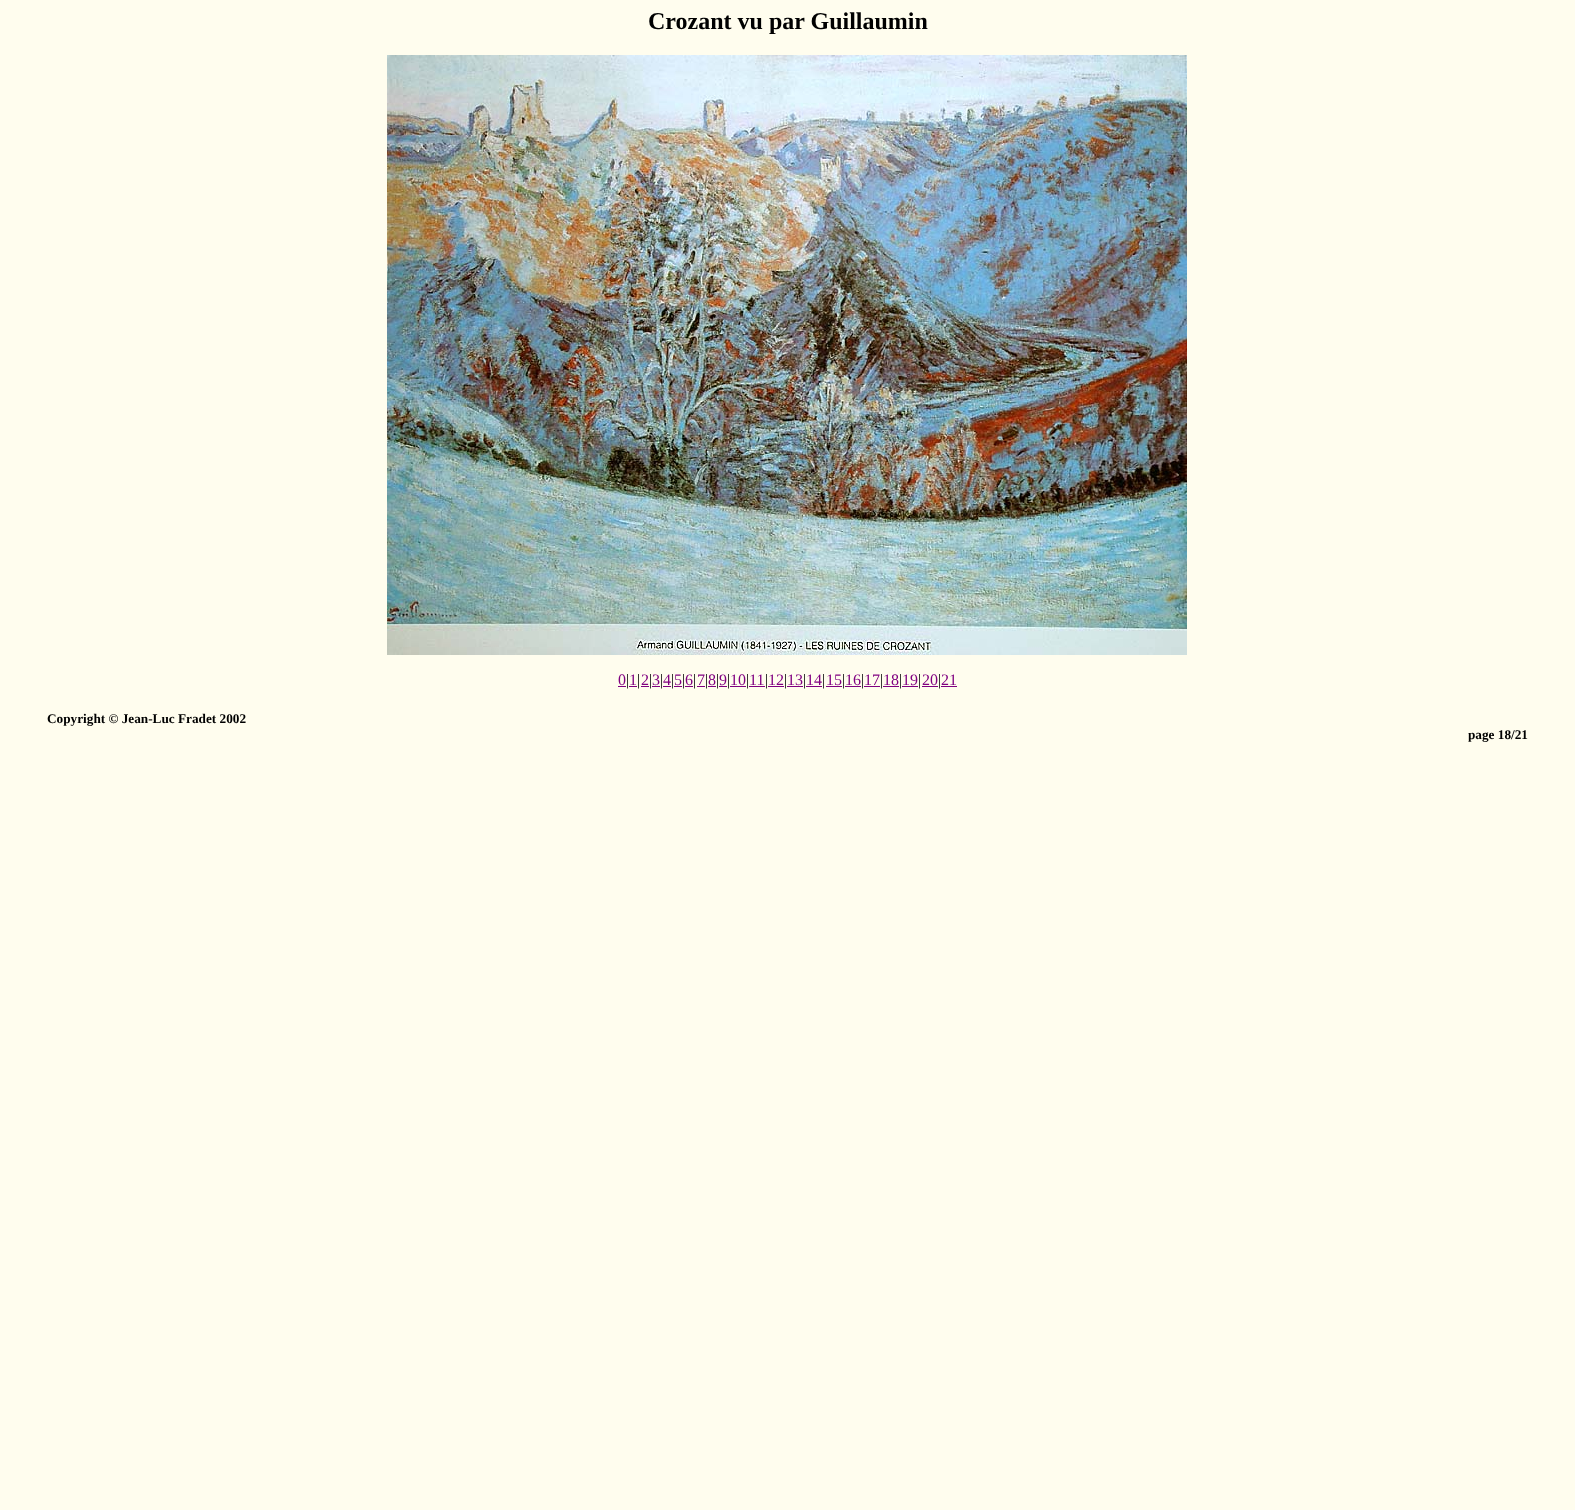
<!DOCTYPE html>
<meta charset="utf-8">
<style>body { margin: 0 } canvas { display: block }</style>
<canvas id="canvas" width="1575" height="1510"></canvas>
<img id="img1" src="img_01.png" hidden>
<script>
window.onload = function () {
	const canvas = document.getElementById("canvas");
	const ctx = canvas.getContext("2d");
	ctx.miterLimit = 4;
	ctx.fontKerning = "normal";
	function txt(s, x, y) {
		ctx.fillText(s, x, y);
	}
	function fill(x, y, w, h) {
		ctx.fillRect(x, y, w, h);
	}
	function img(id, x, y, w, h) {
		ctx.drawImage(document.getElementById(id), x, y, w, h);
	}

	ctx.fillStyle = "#FFFDEE";
	fill(0, 0, 1575, 1510);
	img("img1", 387, 55, 800, 600);
	ctx.fillStyle = "#800080";
	fill(618, 686, 8, 1);
	fill(629, 686, 8, 1);
	fill(641, 686, 8, 1);
	fill(652, 686, 8, 1);
	fill(663, 686, 8, 1);
	fill(674, 686, 8, 1);
	fill(685, 686, 8, 1);
	fill(697, 686, 8, 1);
	fill(708, 686, 8, 1);
	fill(719, 686, 8, 1);
	fill(730, 686, 16, 1);
	fill(749, 686, 16, 1);
	fill(768, 686, 16, 1);
	fill(787, 686, 16, 1);
	fill(806, 686, 16, 1);
	fill(826, 686, 16, 1);
	fill(845, 686, 16, 1);
	fill(864, 686, 16, 1);
	fill(883, 686, 16, 1);
	fill(902, 686, 16, 1);
	fill(922, 686, 16, 1);
	fill(941, 686, 16, 1);
	ctx.font = "bold 24px Liberation Serif";
	ctx.fillStyle = "#000000";
	txt("Crozant vu par Guillaumin", 648, 29);
	ctx.font = "16px Liberation Serif";
	ctx.fillStyle = "#800080";
	txt("0", 618, 685);
	ctx.fillStyle = "#000000";
	txt("|", 626, 685);
	ctx.fillStyle = "#800080";
	txt("1", 629, 685);
	ctx.fillStyle = "#000000";
	txt("|", 637, 685);
	ctx.fillStyle = "#800080";
	txt("2", 641, 685);
	ctx.fillStyle = "#000000";
	txt("|", 649, 685);
	ctx.fillStyle = "#800080";
	txt("3", 652, 685);
	ctx.fillStyle = "#000000";
	txt("|", 660, 685);
	ctx.fillStyle = "#800080";
	txt("4", 663, 685);
	ctx.fillStyle = "#000000";
	txt("|", 671, 685);
	ctx.fillStyle = "#800080";
	txt("5", 674, 685);
	ctx.fillStyle = "#000000";
	txt("|", 682, 685);
	ctx.fillStyle = "#800080";
	txt("6", 685, 685);
	ctx.fillStyle = "#000000";
	txt("|", 693, 685);
	ctx.fillStyle = "#800080";
	txt("7", 697, 685);
	ctx.fillStyle = "#000000";
	txt("|", 705, 685);
	ctx.fillStyle = "#800080";
	txt("8", 708, 685);
	ctx.fillStyle = "#000000";
	txt("|", 716, 685);
	ctx.fillStyle = "#800080";
	txt("9", 719, 685);
	ctx.fillStyle = "#000000";
	txt("|", 727, 685);
	ctx.fillStyle = "#800080";
	txt("10", 730, 685);
	ctx.fillStyle = "#000000";
	txt("|", 746, 685);
	ctx.fillStyle = "#800080";
	txt("11", 749, 685);
	ctx.fillStyle = "#000000";
	txt("|", 765, 685);
	ctx.fillStyle = "#800080";
	txt("12", 768, 685);
	ctx.fillStyle = "#000000";
	txt("|", 784, 685);
	ctx.fillStyle = "#800080";
	txt("13", 787, 685);
	ctx.fillStyle = "#000000";
	txt("|", 803, 685);
	ctx.fillStyle = "#800080";
	txt("14", 806, 685);
	ctx.fillStyle = "#000000";
	txt("|", 822, 685);
	ctx.fillStyle = "#800080";
	txt("15", 826, 685);
	ctx.fillStyle = "#000000";
	txt("|", 842, 685);
	ctx.fillStyle = "#800080";
	txt("16", 845, 685);
	ctx.fillStyle = "#000000";
	txt("|", 861, 685);
	ctx.fillStyle = "#800080";
	txt("17", 864, 685);
	ctx.fillStyle = "#000000";
	txt("|", 880, 685);
	ctx.fillStyle = "#800080";
	txt("18", 883, 685);
	ctx.fillStyle = "#000000";
	txt("|", 899, 685);
	ctx.fillStyle = "#800080";
	txt("19", 902, 685);
	ctx.fillStyle = "#000000";
	txt("|", 918, 685);
	ctx.fillStyle = "#800080";
	txt("20", 922, 685);
	ctx.fillStyle = "#000000";
	txt("|", 938, 685);
	ctx.fillStyle = "#800080";
	txt("21", 941, 685);
	ctx.font = "bold 13.25px Liberation Serif";
	ctx.fillStyle = "#000000";
	txt("Copyright © Jean-Luc Fradet 2002", 47, 723);
	txt("page 18/21", 1468, 739);
};
</script>
